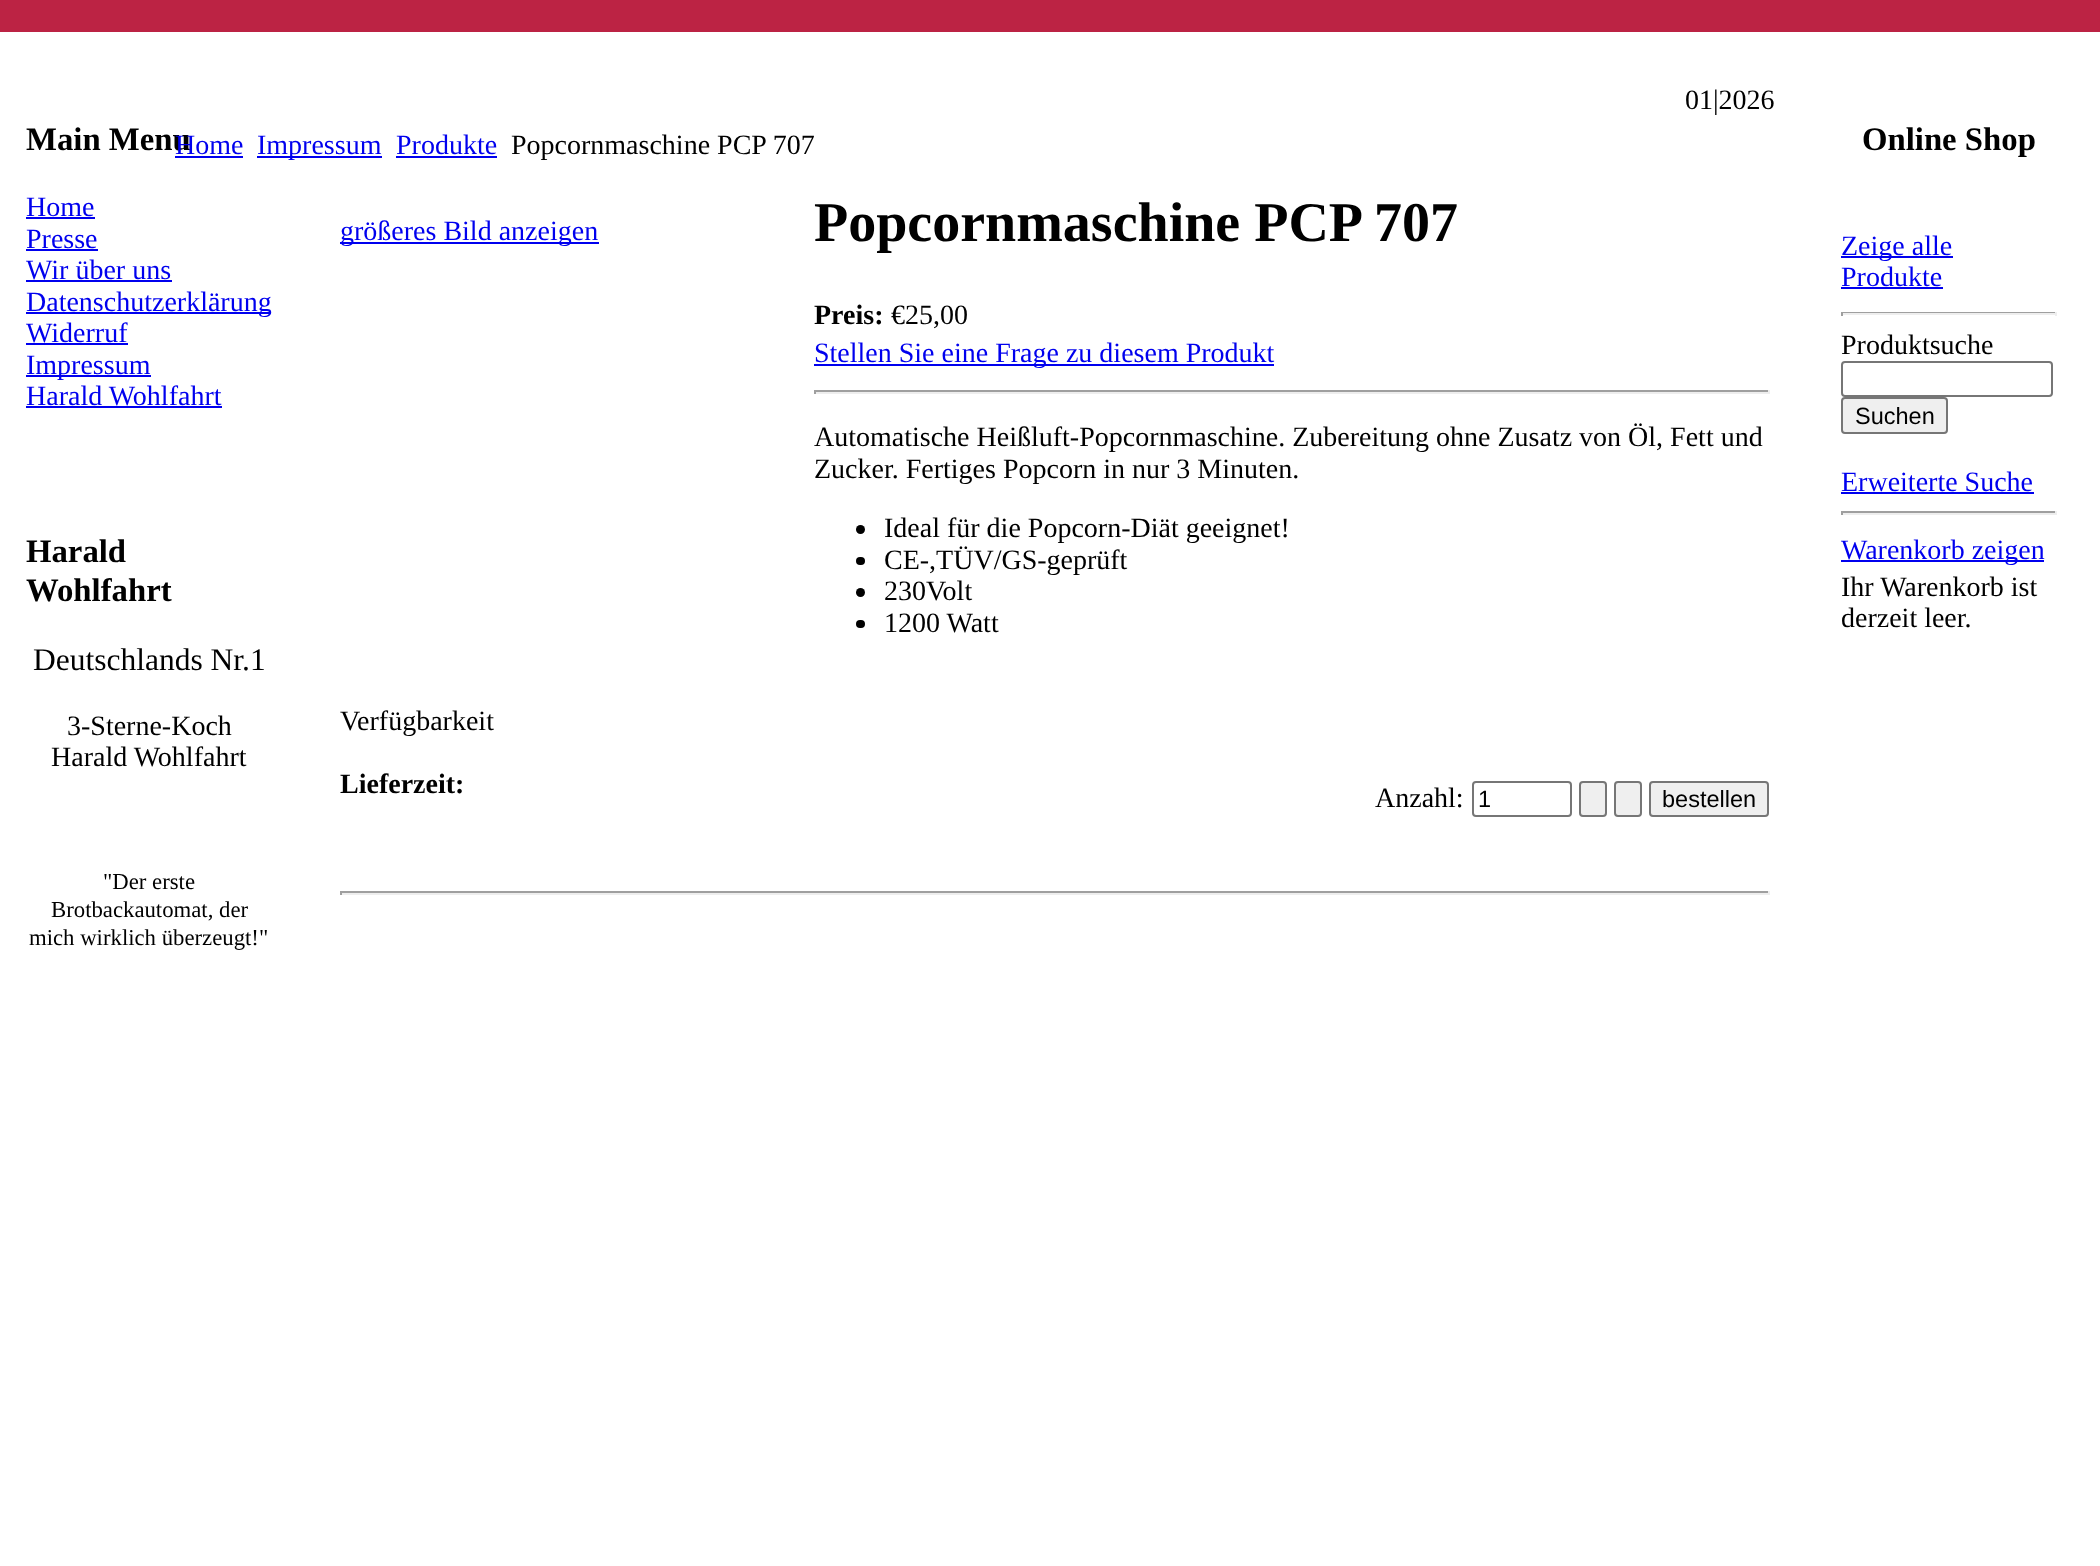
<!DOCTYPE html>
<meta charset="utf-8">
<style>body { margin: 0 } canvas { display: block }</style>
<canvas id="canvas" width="2100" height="1566"></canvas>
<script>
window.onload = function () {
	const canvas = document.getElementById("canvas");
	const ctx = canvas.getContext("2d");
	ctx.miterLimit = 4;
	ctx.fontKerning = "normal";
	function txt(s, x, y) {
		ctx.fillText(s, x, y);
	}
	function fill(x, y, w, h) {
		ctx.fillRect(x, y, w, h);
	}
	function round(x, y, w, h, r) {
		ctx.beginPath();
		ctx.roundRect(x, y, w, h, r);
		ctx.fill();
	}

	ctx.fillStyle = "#FFFFFF";
	fill(0, 0, 2100, 1566);
	ctx.fillStyle = "#BC2344";
	fill(0, 0, 2100, 32);
	ctx.fillStyle = "#0000EE";
	fill(26, 217, 69, 2);
	fill(26, 249, 72, 2);
	fill(26, 280, 146, 2);
	fill(26, 312, 245, 2);
	fill(26, 343, 102, 2);
	fill(26, 375, 125, 2);
	fill(26, 406, 196, 2);
	fill(340, 242, 259, 2);
	fill(814, 364, 460, 2);
	ctx.fillStyle = "#9F9F9F";
	fill(814, 390, 955, 2);
	ctx.fillStyle = "#EEEEEE";
	fill(1768, 390, 2, 4);
	fill(814, 392, 955, 2);
	ctx.fillStyle = "#9F9F9F";
	fill(814, 390, 2, 4);
	ctx.fillStyle = "#000000";
	ctx.beginPath();
	ctx.arc(860.5, 529.5, 4.5, 0, Math.PI * 2);
	ctx.fill();
	round(856, 557, 9, 8, 4);
	ctx.beginPath();
	ctx.arc(860.5, 592.5, 4.5, 0, Math.PI * 2);
	ctx.fill();
	round(856, 620, 9, 8, 4);
	ctx.beginPath();
	ctx.roundRect(1473, 782, 98, 34, 3);
	ctx.strokeStyle = "#767676";
	ctx.lineWidth = 2;
	ctx.stroke();
	ctx.fillStyle = "#EFEFEF";
	ctx.beginPath();
	ctx.roundRect(1580, 782, 26, 34, 3);
	ctx.fill();
	ctx.stroke();
	ctx.beginPath();
	ctx.roundRect(1615, 782, 26, 34, 3);
	ctx.fill();
	ctx.stroke();
	ctx.beginPath();
	ctx.roundRect(1650, 782, 118, 34, 3);
	ctx.fill();
	ctx.stroke();
	ctx.fillStyle = "#9F9F9F";
	fill(340, 891, 1429, 2);
	ctx.fillStyle = "#EEEEEE";
	fill(1768, 891, 2, 4);
	fill(340, 893, 1429, 2);
	ctx.fillStyle = "#9F9F9F";
	fill(340, 891, 2, 4);
	ctx.fillStyle = "#0000EE";
	fill(1841, 256, 112, 2);
	fill(1841, 287, 102, 2);
	ctx.fillStyle = "#9F9F9F";
	fill(1841, 312, 215, 1);
	ctx.fillStyle = "#EEEEEE";
	fill(2055, 312, 2, 4);
	fill(1841, 313, 215, 2);
	ctx.fillStyle = "#9F9F9F";
	fill(1841, 312, 2, 4);
	ctx.beginPath();
	ctx.roundRect(1842, 362, 210, 34, 3);
	ctx.stroke();
	ctx.fillStyle = "#EFEFEF";
	ctx.beginPath();
	ctx.roundRect(1842, 398, 105, 35, 3);
	ctx.fill();
	ctx.stroke();
	ctx.fillStyle = "#0000EE";
	fill(1841, 492, 193, 2);
	ctx.fillStyle = "#9F9F9F";
	fill(1841, 511, 215, 2);
	ctx.fillStyle = "#EEEEEE";
	fill(2055, 511, 2, 4);
	fill(1841, 513, 215, 2);
	ctx.fillStyle = "#9F9F9F";
	fill(1841, 511, 2, 4);
	ctx.fillStyle = "#0000EE";
	fill(1841, 560, 203, 2);
	fill(175, 156, 68, 2);
	fill(257, 156, 125, 2);
	fill(396, 156, 101, 2);
	ctx.font = "bold 32.75px Liberation Serif";
	ctx.fillStyle = "#000000";
	txt("Main Menu", 26, 150);
	ctx.font = "28px Liberation Serif";
	ctx.fillStyle = "#0000EE";
	txt("Home", 26, 216);
	txt("Presse", 26, 248);
	txt("Wir über uns", 26, 279);
	txt("Datenschutzerklärung", 26, 311);
	txt("Widerruf", 26, 342);
	txt("Impressum", 26, 374);
	txt("Harald Wohlfahrt", 26, 405);
	ctx.font = "bold 32.75px Liberation Serif";
	ctx.fillStyle = "#000000";
	txt("Harald", 26, 562);
	txt("Wohlfahrt", 26, 601);
	ctx.font = "31.5px Liberation Serif";
	txt("Deutschlands Nr.1", 33, 670);
	ctx.font = "28px Liberation Serif";
	txt("3-Sterne-Koch", 67, 735);
	txt("Harald Wohlfahrt", 51, 766);
	ctx.font = "22.75px Liberation Serif";
	txt("\"Der erste", 103, 889);
	txt("Brotbackautomat, der", 51, 917);
	txt("mich wirklich überzeugt!\"", 29, 945);
	ctx.font = "28px Liberation Serif";
	txt("01|2026", 1685, 109);
	ctx.fillStyle = "#0000EE";
	txt("größeres Bild anzeigen", 340, 240);
	ctx.font = "bold 56px Liberation Serif";
	ctx.fillStyle = "#000000";
	txt("Popcornmaschine PCP 707", 814, 241);
	ctx.font = "bold 28px Liberation Serif";
	txt("Preis:", 814, 324);
	ctx.font = "28px Liberation Serif";
	txt("€25,00", 891, 324);
	ctx.fillStyle = "#0000EE";
	txt("Stellen Sie eine Frage zu diesem Produkt", 814, 362);
	ctx.fillStyle = "#000000";
	txt("Automatische Heißluft-Popcornmaschine. Zubereitung ohne Zusatz von Öl, Fett und", 814, 446);
	txt("Zucker. Fertiges Popcorn in nur 3 Minuten.", 814, 478);
	txt("Ideal für die Popcorn-Diät geeignet!", 884, 537);
	txt("CE-,TÜV/GS-geprüft", 884, 569);
	txt("230Volt", 884, 600);
	txt("1200 Watt", 884, 632);
	txt("Verfügbarkeit", 340, 730);
	ctx.font = "bold 28px Liberation Serif";
	txt("Lieferzeit:", 340, 793);
	ctx.font = "28px Liberation Serif";
	txt("Anzahl:", 1375, 807);
	ctx.font = "23.5px Liberation Sans";
	txt("1", 1478, 807);
	txt("bestellen", 1662, 807);
	ctx.font = "bold 32.75px Liberation Serif";
	txt("Online Shop", 1862, 150);
	ctx.font = "28px Liberation Serif";
	ctx.fillStyle = "#0000EE";
	txt("Zeige alle", 1841, 255);
	txt("Produkte", 1841, 286);
	ctx.fillStyle = "#000000";
	txt("Produktsuche", 1841, 354);
	ctx.font = "23.5px Liberation Sans";
	txt("Suchen", 1855, 424);
	ctx.font = "28px Liberation Serif";
	ctx.fillStyle = "#0000EE";
	txt("Erweiterte Suche", 1841, 491);
	txt("Warenkorb zeigen", 1841, 559);
	ctx.fillStyle = "#000000";
	txt("Ihr Warenkorb ist", 1841, 596);
	txt("derzeit leer.", 1841, 627);
	ctx.fillStyle = "#0000EE";
	txt("Home", 175, 154);
	txt("Impressum", 257, 154);
	txt("Produkte", 396, 154);
	ctx.fillStyle = "#000000";
	txt("Popcornmaschine PCP 707", 511, 154);
};
</script>
